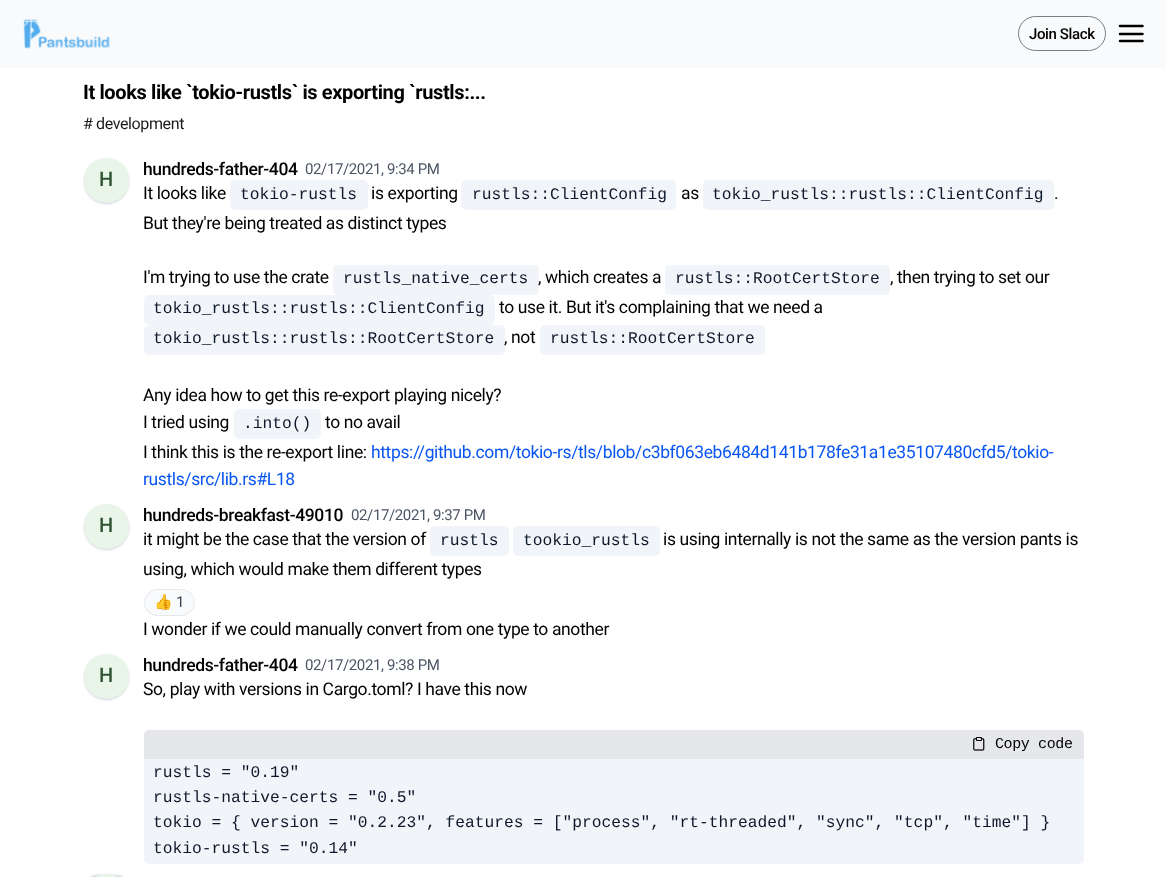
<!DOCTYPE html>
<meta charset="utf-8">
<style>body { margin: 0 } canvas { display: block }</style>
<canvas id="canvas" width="1166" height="877"></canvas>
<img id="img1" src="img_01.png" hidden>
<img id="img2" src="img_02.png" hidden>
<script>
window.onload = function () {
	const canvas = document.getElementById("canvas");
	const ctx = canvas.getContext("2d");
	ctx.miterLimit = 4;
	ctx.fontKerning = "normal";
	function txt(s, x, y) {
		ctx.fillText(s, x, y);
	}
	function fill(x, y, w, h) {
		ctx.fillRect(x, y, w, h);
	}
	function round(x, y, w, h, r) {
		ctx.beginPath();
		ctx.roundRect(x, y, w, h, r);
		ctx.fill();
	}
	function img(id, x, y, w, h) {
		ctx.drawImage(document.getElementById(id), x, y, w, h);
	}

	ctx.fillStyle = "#FFFFFF";
	fill(0, 0, 1166, 877);
	ctx.fillStyle = "#F8FAFC";
	fill(0, 0, 1166, 68);
	img("img1", 23, 19, 87, 30);
	ctx.beginPath();
	ctx.roundRect(1018.5, 16.5, 87, 34, 17);
	ctx.strokeStyle = "#7C7D7E";
	ctx.stroke();
	ctx.beginPath();
	ctx.moveTo(1120, 34);
	ctx.lineTo(1142.5, 34);
	ctx.moveTo(1120, 26);
	ctx.lineTo(1142.5, 26);
	ctx.moveTo(1120, 41);
	ctx.lineTo(1142.5, 41);
	ctx.strokeStyle = "#000000";
	ctx.lineWidth = 2.5;
	ctx.lineCap = "round";
	ctx.lineJoin = "round";
	ctx.stroke();
	ctx.fillStyle = "#D1D5DB";
	ctx.filter = "blur(1px)";
	ctx.beginPath();
	ctx.roundRect(84, 159, 45, 45, 22.5);
	ctx.fill();
	ctx.filter = "none";
	ctx.fillStyle = "#E9F5E9";
	ctx.beginPath();
	ctx.arc(106.5, 180.5, 22.5, 0, Math.PI * 2);
	ctx.fill();
	ctx.fillStyle = "#F1F5F9";
	round(230, 180, 138, 30, 5);
	round(461, 180, 215, 30, 5);
	round(703, 180, 351, 30, 5);
	round(333, 265, 206, 30, 5);
	round(665, 265, 225, 30, 5);
	round(144, 295, 351, 30, 5);
	round(144, 325, 361, 30, 5);
	round(540, 325, 225, 30, 5);
	round(234, 409, 87, 30, 5);
	ctx.fillStyle = "#D1D5DB";
	ctx.filter = "blur(1px)";
	ctx.beginPath();
	ctx.roundRect(84, 505, 45, 45, 22.5);
	ctx.fill();
	ctx.filter = "none";
	ctx.fillStyle = "#E9F5E9";
	ctx.beginPath();
	ctx.arc(106.5, 526.5, 22.5, 0, Math.PI * 2);
	ctx.fill();
	ctx.fillStyle = "#F1F5F9";
	round(430, 526, 79, 30, 5);
	round(513, 526, 147, 30, 5);
	ctx.fillStyle = "#F9FAFB";
	ctx.beginPath();
	ctx.roundRect(144.5, 589.5, 50, 26, 13);
	ctx.fill();
	ctx.strokeStyle = "#E5E7EB";
	ctx.lineWidth = 1;
	ctx.lineJoin = "miter";
	ctx.stroke();
	ctx.fillStyle = "#D1D5DB";
	ctx.filter = "blur(1px)";
	ctx.beginPath();
	ctx.roundRect(84, 655, 45, 45, 22.5);
	ctx.fill();
	ctx.filter = "none";
	ctx.fillStyle = "#E9F5E9";
	ctx.beginPath();
	ctx.arc(106.5, 676.5, 22.5, 0, Math.PI * 2);
	ctx.fill();
	ctx.fillStyle = "#E5E7EB";
	ctx.beginPath();
	ctx.roundRect(144, 730, 940, 29, [5, 5, 0, 0]);
	ctx.fill();
	img("img2", 973, 737, 12, 14);
	ctx.fillStyle = "#F1F5F9";
	ctx.beginPath();
	ctx.roundRect(144, 759, 940, 105, [0, 0, 5, 5]);
	ctx.fill();
	ctx.fillStyle = "#D1D5DB";
	ctx.filter = "blur(1px)";
	ctx.beginPath();
	ctx.roundRect(84, 875, 45, 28, 22.5);
	ctx.fill();
	ctx.filter = "none";
	ctx.fillStyle = "#E9F5E9";
	ctx.beginPath();
	ctx.moveTo(106.5, 874);
	ctx.bezierCurveTo(119, 874, 129, 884, 129, 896.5);
	ctx.lineTo(129, 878);
	ctx.lineTo(84, 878);
	ctx.lineTo(84, 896.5);
	ctx.bezierCurveTo(84, 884, 94, 874, 106.5, 874);
	ctx.closePath();
	ctx.fill();
	ctx.letterSpacing = "-0.38px";
	ctx.font = "500 15px Roboto";
	ctx.fillStyle = "#000000";
	txt("Join Slack", 1029, 39);
	ctx.font = "bold 20px Roboto";
	txt("It looks like `tokio-rustls` is exporting `rustls:...", 83, 99);
	ctx.font = "16px Roboto";
	ctx.fillStyle = "#1A1A1A";
	txt("# development", 83, 129);
	ctx.font = "500 20px Roboto";
	ctx.fillStyle = "#305332";
	txt("H", 99, 186);
	ctx.font = "500 17.5px Roboto";
	ctx.fillStyle = "#000000";
	txt("hundreds-father-404", 143, 175);
	ctx.font = "15px Roboto";
	ctx.fillStyle = "#4B5563";
	txt("02/17/2021, 9:34 PM", 305, 174);
	ctx.font = "17.5px Roboto";
	ctx.fillStyle = "#000000";
	txt("It looks like", 143, 199);
	ctx.letterSpacing = "0px";
	ctx.font = "16.25px Liberation Mono";
	ctx.fillStyle = "#0F172A";
	txt("tokio-rustls", 240, 199);
	ctx.letterSpacing = "-0.38px";
	ctx.font = "17.5px Roboto";
	ctx.fillStyle = "#000000";
	txt("is exporting", 371, 199);
	ctx.letterSpacing = "0px";
	ctx.font = "16.25px Liberation Mono";
	ctx.fillStyle = "#0F172A";
	txt("rustls::ClientConfig", 472, 199);
	ctx.letterSpacing = "-0.38px";
	ctx.font = "17.5px Roboto";
	ctx.fillStyle = "#000000";
	txt("as", 681, 199);
	ctx.letterSpacing = "0px";
	ctx.font = "16.25px Liberation Mono";
	ctx.fillStyle = "#0F172A";
	txt("tokio_rustls::rustls::ClientConfig", 712, 199);
	ctx.letterSpacing = "-0.38px";
	ctx.font = "17.5px Roboto";
	ctx.fillStyle = "#000000";
	txt(".", 1054, 199);
	txt("But they're being treated as distinct types", 143, 229);
	txt("I'm trying to use the crate", 143, 283);
	ctx.letterSpacing = "0px";
	ctx.font = "16.25px Liberation Mono";
	ctx.fillStyle = "#0F172A";
	txt("rustls_native_certs", 343, 283);
	ctx.letterSpacing = "-0.38px";
	ctx.font = "17.5px Roboto";
	ctx.fillStyle = "#000000";
	txt(", which creates a", 538, 283);
	ctx.letterSpacing = "0px";
	ctx.font = "16.25px Liberation Mono";
	ctx.fillStyle = "#0F172A";
	txt("rustls::RootCertStore", 675, 283);
	ctx.letterSpacing = "-0.38px";
	ctx.font = "17.5px Roboto";
	ctx.fillStyle = "#000000";
	txt(", then trying to set our", 890, 283);
	ctx.letterSpacing = "0px";
	ctx.font = "16.25px Liberation Mono";
	ctx.fillStyle = "#0F172A";
	txt("tokio_rustls::rustls::ClientConfig", 153, 313);
	ctx.letterSpacing = "-0.38px";
	ctx.font = "17.5px Roboto";
	ctx.fillStyle = "#000000";
	txt("to use it. But it's complaining that we need a", 499, 313);
	ctx.letterSpacing = "0px";
	ctx.font = "16.25px Liberation Mono";
	ctx.fillStyle = "#0F172A";
	txt("tokio_rustls::rustls::RootCertStore", 153, 343);
	ctx.letterSpacing = "-0.38px";
	ctx.font = "17.5px Roboto";
	ctx.fillStyle = "#000000";
	txt(", not", 504, 343);
	ctx.letterSpacing = "0px";
	ctx.font = "16.25px Liberation Mono";
	ctx.fillStyle = "#0F172A";
	txt("rustls::RootCertStore", 550, 343);
	ctx.letterSpacing = "-0.38px";
	ctx.font = "17.5px Roboto";
	ctx.fillStyle = "#000000";
	txt("Any idea how to get this re-export playing nicely?", 143, 401);
	txt("I tried using", 143, 428);
	ctx.letterSpacing = "0px";
	ctx.font = "16.25px Liberation Mono";
	ctx.fillStyle = "#0F172A";
	txt(".into()", 243, 428);
	ctx.letterSpacing = "-0.38px";
	ctx.font = "17.5px Roboto";
	ctx.fillStyle = "#000000";
	txt("to no avail", 325, 428);
	txt("I think this is the re-export line:", 143, 458);
	ctx.fillStyle = "#0855F4";
	txt("https://github.com/tokio-rs/tls/blob/c3bf063eb6484d141b178fe31a1e35107480cfd5/tokio-", 371, 458);
	txt("rustls/src/lib.rs#L18", 143, 485);
	ctx.font = "500 20px Roboto";
	ctx.fillStyle = "#305332";
	txt("H", 99, 532);
	ctx.font = "500 17.5px Roboto";
	ctx.fillStyle = "#000000";
	txt("hundreds-breakfast-49010", 143, 521);
	ctx.font = "15px Roboto";
	ctx.fillStyle = "#4B5563";
	txt("02/17/2021, 9:37 PM", 351, 520);
	ctx.font = "17.5px Roboto";
	ctx.fillStyle = "#000000";
	txt("it might be the case that the version of", 143, 545);
	ctx.letterSpacing = "0px";
	ctx.font = "16.25px Liberation Mono";
	ctx.fillStyle = "#0F172A";
	txt("rustls", 440, 545);
	txt("tookio_rustls", 523, 545);
	ctx.letterSpacing = "-0.38px";
	ctx.font = "17.5px Roboto";
	ctx.fillStyle = "#000000";
	txt("is using internally is not the same as the version pants is", 663, 545);
	txt("using, which would make them different types", 143, 575);
	ctx.font = "15px Noto Color Emoji";
	ctx.fillStyle = "#374151";
	txt("👍", 154, 607);
	ctx.font = "15px Roboto";
	txt("1", 176, 607);
	ctx.font = "17.5px Roboto";
	ctx.fillStyle = "#000000";
	txt("I wonder if we could manually convert from one type to another", 143, 635);
	ctx.font = "500 20px Roboto";
	ctx.fillStyle = "#305332";
	txt("H", 99, 682);
	ctx.font = "500 17.5px Roboto";
	ctx.fillStyle = "#000000";
	txt("hundreds-father-404", 143, 671);
	ctx.font = "15px Roboto";
	ctx.fillStyle = "#4B5563";
	txt("02/17/2021, 9:38 PM", 305, 670);
	ctx.font = "17.5px Roboto";
	ctx.fillStyle = "#000000";
	txt("So, play with versions in Cargo.toml? I have this now", 143, 695);
	ctx.font = "15px Liberation Mono";
	txt("Copy code", 995, 748);
	ctx.letterSpacing = "0px";
	ctx.font = "16.25px Liberation Mono";
	ctx.fillStyle = "#0F172A";
	txt("rustls = \"0.19\"", 153, 777);
	txt("rustls-native-certs = \"0.5\"", 153, 802);
	txt("tokio = { version = \"0.2.23\", features = [\"process\", \"rt-threaded\", \"sync\", \"tcp\", \"time\"] }", 153, 827);
	txt("tokio-rustls = \"0.14\"", 153, 853);
};
</script>
